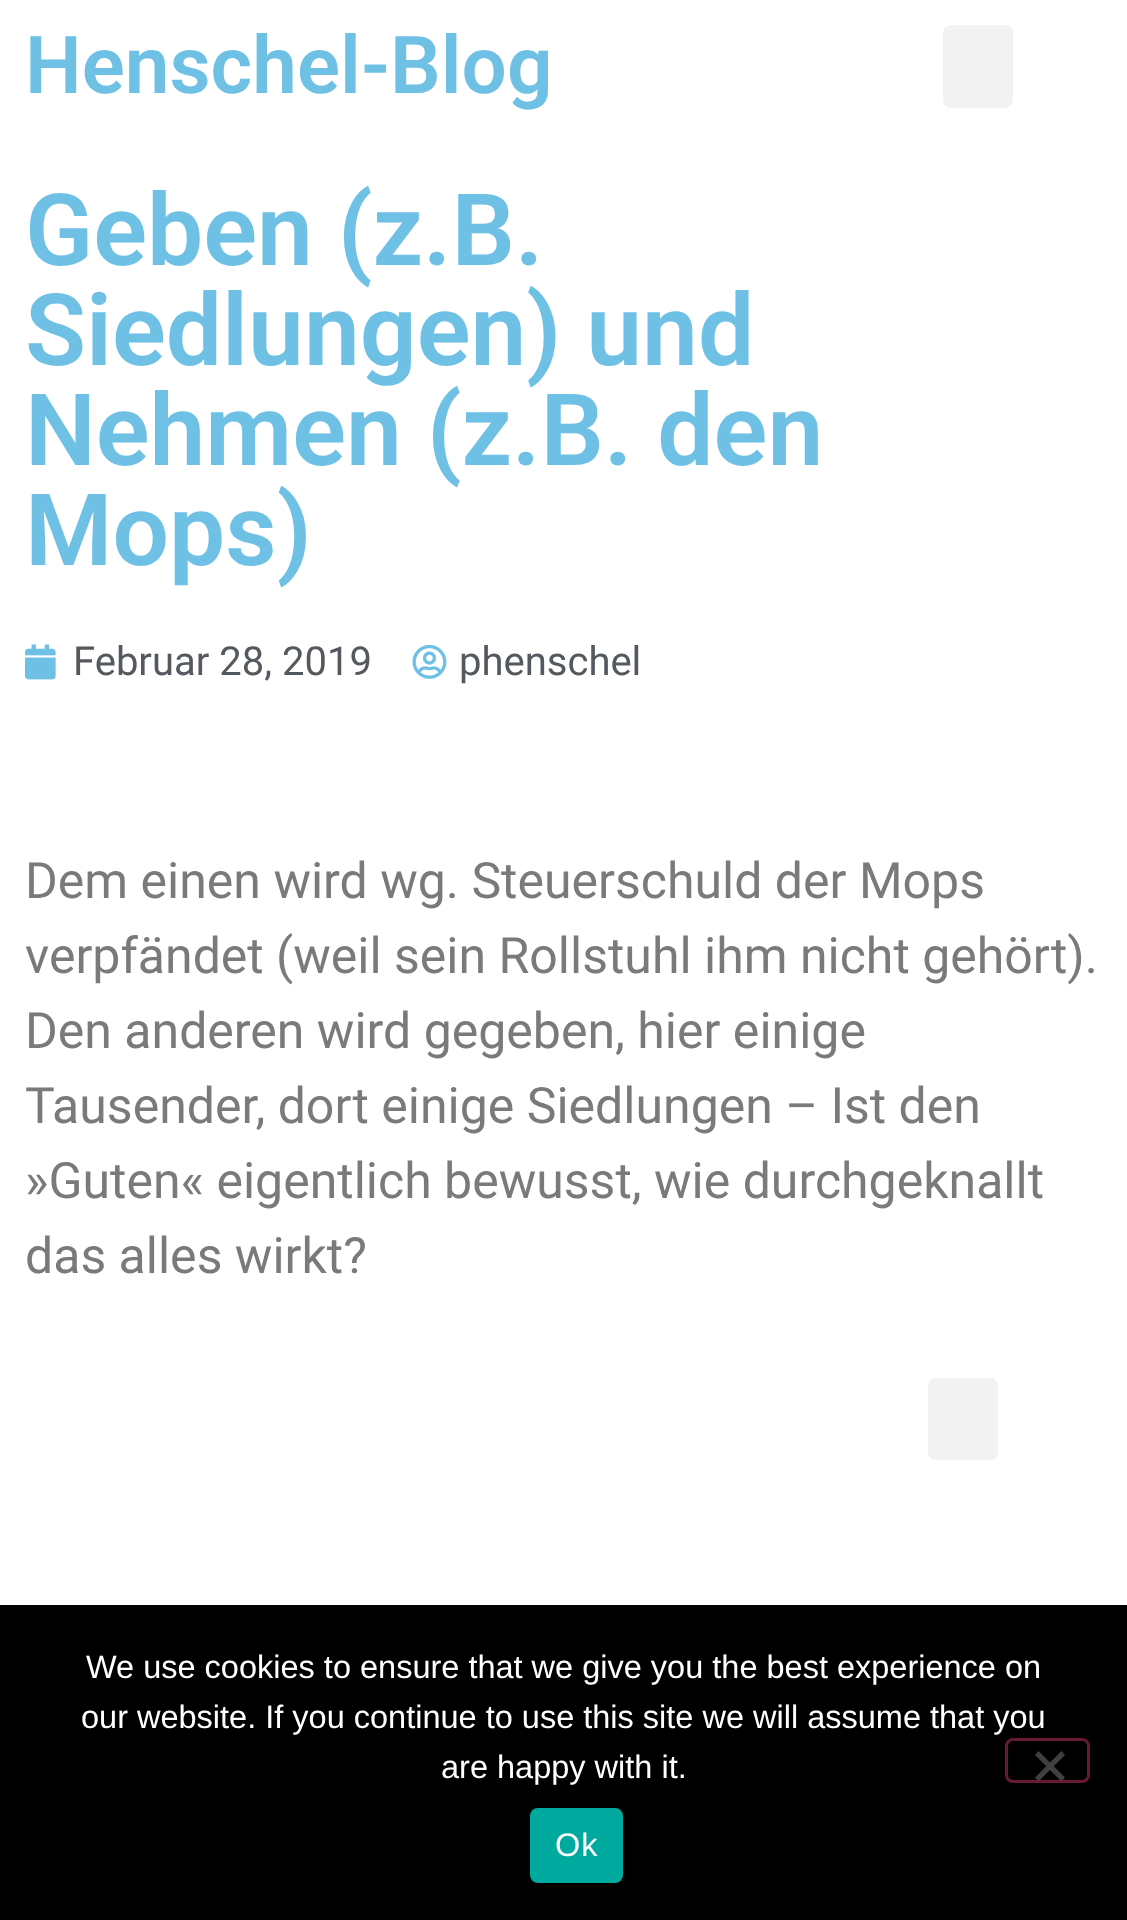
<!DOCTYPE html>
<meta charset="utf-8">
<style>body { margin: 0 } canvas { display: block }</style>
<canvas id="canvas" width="1127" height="1920"></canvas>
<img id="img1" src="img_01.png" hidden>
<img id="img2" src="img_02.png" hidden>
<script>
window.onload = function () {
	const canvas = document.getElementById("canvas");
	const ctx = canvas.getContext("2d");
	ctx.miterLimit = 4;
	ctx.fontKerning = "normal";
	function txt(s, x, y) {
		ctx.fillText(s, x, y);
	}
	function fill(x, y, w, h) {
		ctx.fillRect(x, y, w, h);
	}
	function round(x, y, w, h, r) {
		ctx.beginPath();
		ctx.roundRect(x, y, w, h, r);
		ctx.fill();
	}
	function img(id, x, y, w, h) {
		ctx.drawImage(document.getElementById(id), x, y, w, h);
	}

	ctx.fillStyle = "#FFFFFF";
	fill(0, 0, 1127, 1920);
	ctx.fillStyle = "#F2F2F2";
	round(943, 25, 70, 83, 8);
	img("img1", 25, 644, 31, 36);
	img("img2", 412, 644, 35, 35);
	round(928, 1378, 70, 82, 8);
	ctx.fillStyle = "#000000";
	fill(0, 1605, 1127, 315);
	ctx.beginPath();
	ctx.roundRect(1006.5, 1739.5, 82, 42, 6.5);
	ctx.strokeStyle = "#661A33";
	ctx.lineWidth = 3;
	ctx.stroke();
	ctx.fillStyle = "#404040";
	ctx.beginPath();
	ctx.moveTo(1061.5, 1751);
	ctx.lineTo(1065, 1755);
	ctx.lineTo(1038.5, 1781.5);
	ctx.lineTo(1035, 1777.5);
	ctx.closePath();
	ctx.fill();
	ctx.beginPath();
	ctx.moveTo(1035, 1755);
	ctx.lineTo(1038.5, 1751);
	ctx.lineTo(1065, 1777.5);
	ctx.lineTo(1061.5, 1781.5);
	ctx.closePath();
	ctx.fill();
	ctx.fillStyle = "#00A99D";
	round(530, 1808, 93, 75, 8);
	ctx.font = "600 80px Roboto";
	ctx.fillStyle = "#6EC1E4";
	txt("Henschel-Blog", 25, 93);
	ctx.font = "600 100px Roboto";
	txt("Geben (z.B.", 25, 265);
	txt("Siedlungen) und", 25, 365);
	txt("Nehmen (z.B. den", 25, 465);
	txt("Mops)", 25, 565);
	ctx.font = "40px Roboto";
	ctx.fillStyle = "#54595F";
	txt("Februar 28, 2019", 73, 675);
	txt("phenschel", 459, 675);
	ctx.font = "50px Roboto";
	ctx.fillStyle = "#7A7A7A";
	txt("Dem einen wird wg. Steuerschuld der Mops", 25, 898);
	txt("verpfändet (weil sein Rollstuhl ihm nicht gehört).", 25, 973);
	txt("Den anderen wird gegeben, hier einige", 25, 1048);
	txt("Tausender, dort einige Siedlungen – Ist den", 25, 1123);
	txt("»Guten« eigentlich bewusst, wie durchgeknallt", 25, 1198);
	txt("das alles wirkt?", 25, 1273);
	ctx.font = "32.5px Liberation Sans";
	ctx.fillStyle = "#FFFFFF";
	txt("We use cookies to ensure that we give you the best experience on", 86, 1678);
	txt("our website. If you continue to use this site we will assume that you", 81, 1728);
	txt("are happy with it.", 441, 1778);
	ctx.letterSpacing = "1px";
	txt("Ok", 555, 1856);
};
</script>
